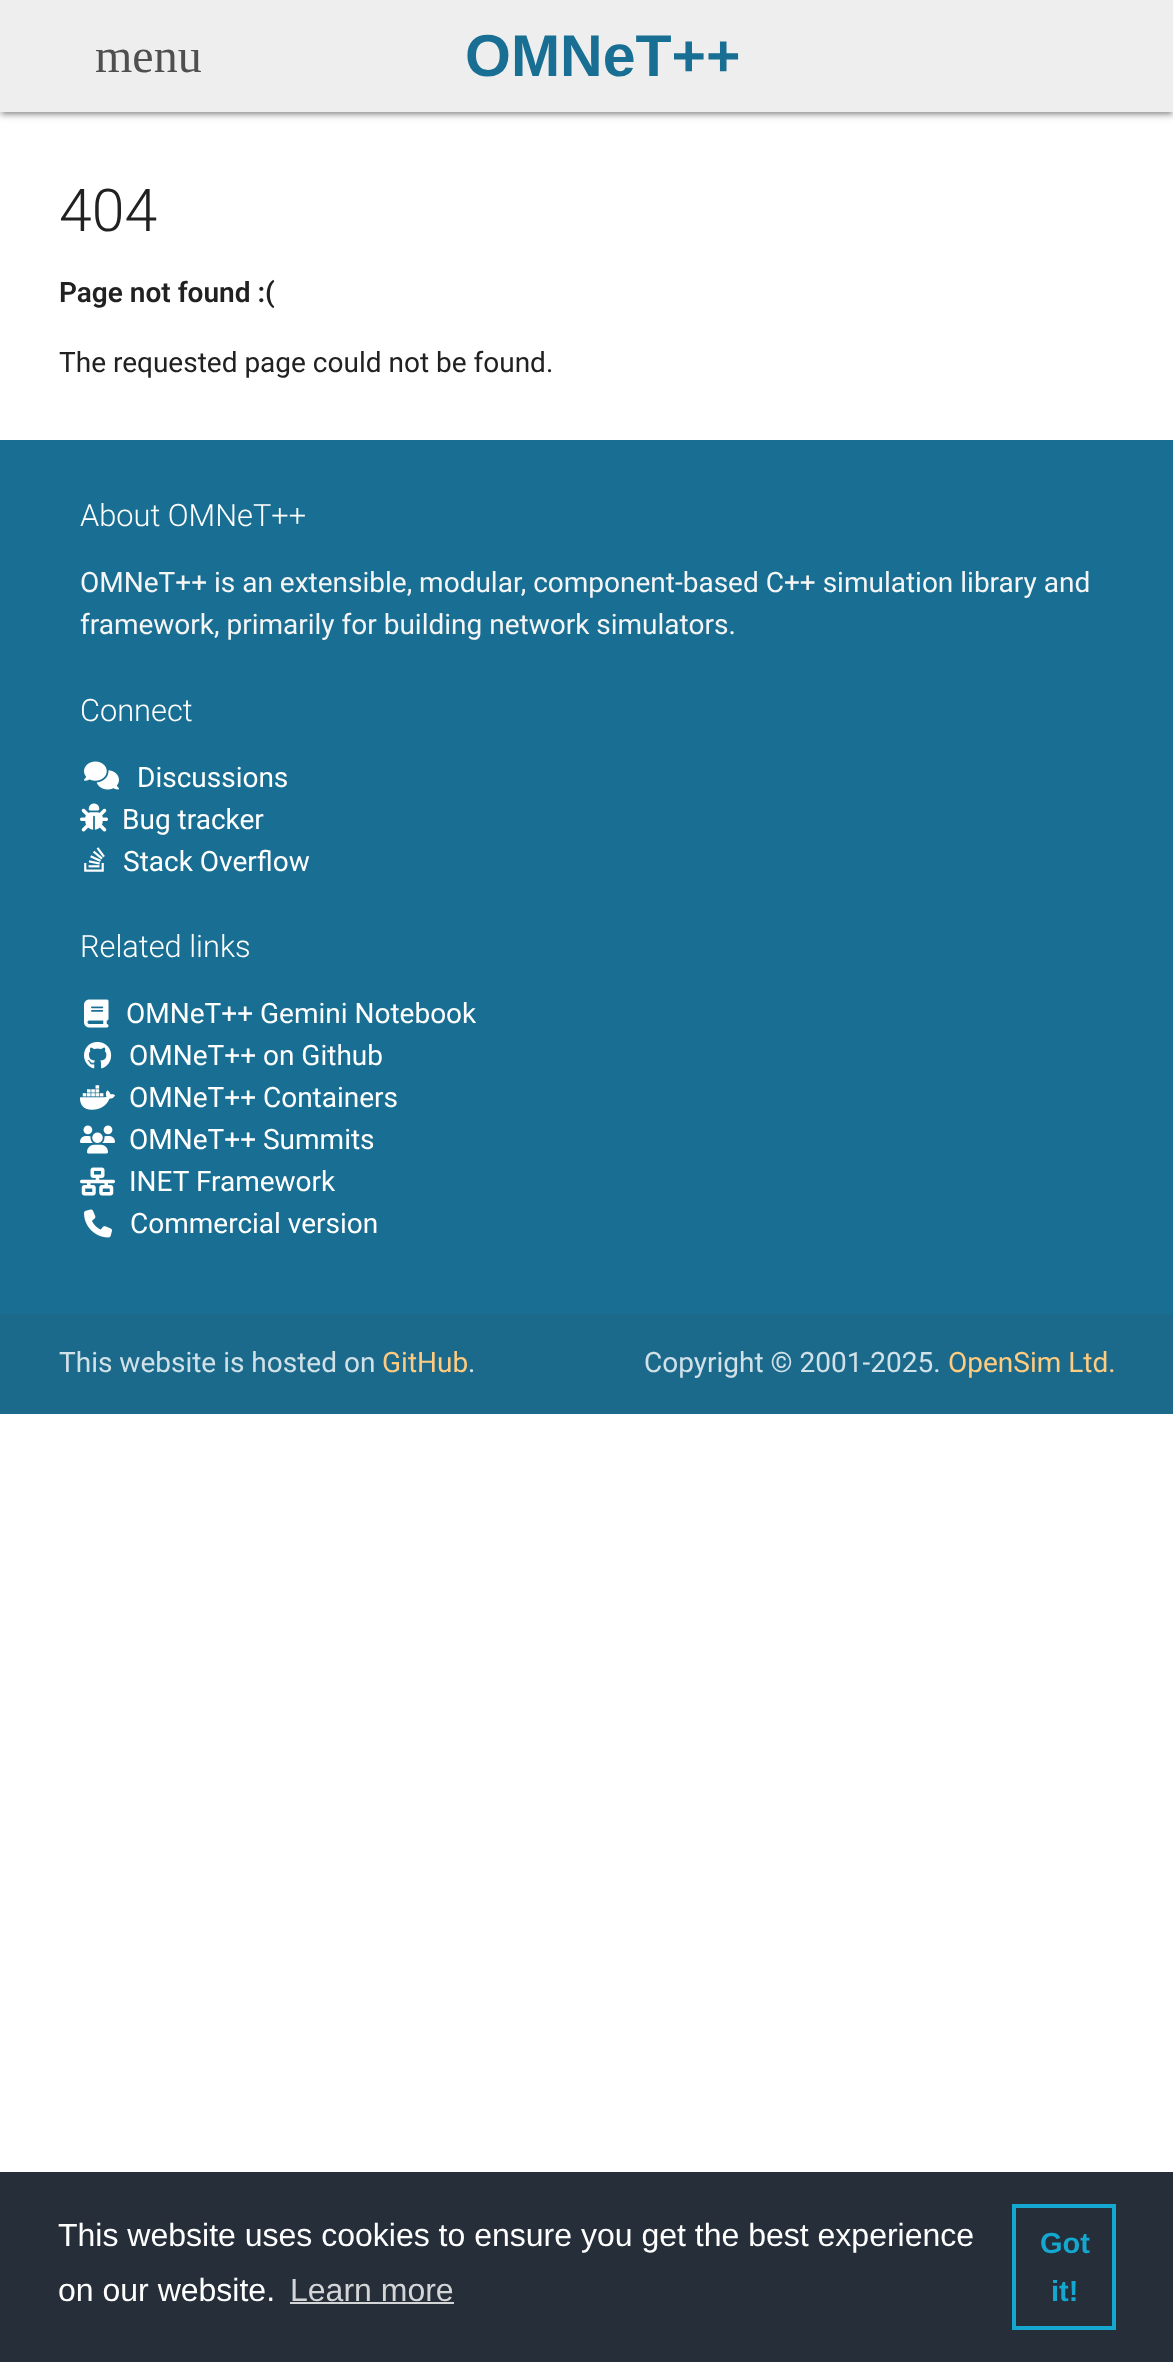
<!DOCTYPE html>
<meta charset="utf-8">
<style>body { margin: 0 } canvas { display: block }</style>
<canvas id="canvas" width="1173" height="2362"></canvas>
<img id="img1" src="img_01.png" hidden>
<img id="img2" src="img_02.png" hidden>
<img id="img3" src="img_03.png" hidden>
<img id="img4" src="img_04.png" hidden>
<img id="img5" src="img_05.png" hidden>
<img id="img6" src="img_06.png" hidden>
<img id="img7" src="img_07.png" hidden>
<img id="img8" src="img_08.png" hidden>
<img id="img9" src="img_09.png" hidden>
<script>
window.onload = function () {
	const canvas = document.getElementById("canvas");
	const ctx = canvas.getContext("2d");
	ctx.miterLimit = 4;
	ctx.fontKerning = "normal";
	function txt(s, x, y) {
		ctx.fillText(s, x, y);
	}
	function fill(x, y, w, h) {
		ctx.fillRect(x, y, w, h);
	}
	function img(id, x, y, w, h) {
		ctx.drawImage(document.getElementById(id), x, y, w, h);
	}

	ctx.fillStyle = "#FFFFFF";
	fill(0, 0, 1173, 2362);
	ctx.fillStyle = "rgba(0, 0, 0, 0.2)";
	ctx.filter = "blur(5px)";
	ctx.beginPath();
	ctx.rect(0, 2, 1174, 112);
	ctx.fill();
	ctx.filter = "none";
	ctx.fillStyle = "rgba(0, 0, 0, 0.12)";
	ctx.filter = "blur(1px)";
	ctx.beginPath();
	ctx.rect(4, 10, 1166, 104);
	ctx.fill();
	ctx.filter = "none";
	ctx.fillStyle = "rgba(0, 0, 0, 0.14)";
	ctx.filter = "blur(2px)";
	ctx.beginPath();
	ctx.rect(0, 4, 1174, 112);
	ctx.fill();
	ctx.filter = "none";
	ctx.fillStyle = "#EEEEEE";
	fill(0, 0, 1173, 112);
	ctx.fillStyle = "#196F93";
	fill(0, 440, 1173, 874);
	img("img1", 84, 761, 35, 29);
	img("img2", 80, 803, 28, 29);
	img("img3", 84, 847, 21, 25);
	img("img4", 84, 999, 25, 29);
	img("img5", 84, 1041, 28, 28);
	img("img6", 80, 1085, 35, 25);
	img("img7", 80, 1125, 35, 29);
	img("img8", 80, 1167, 35, 29);
	img("img9", 84, 1209, 28, 29);
	ctx.fillStyle = "#1B6A8B";
	fill(0, 1314, 1173, 100);
	ctx.fillStyle = "#252E39";
	fill(0, 2172, 1173, 190);
	ctx.fillStyle = "#D3D5D7";
	fill(290, 2302, 164, 2);
	ctx.strokeStyle = "#14A7D0";
	ctx.lineWidth = 4;
	ctx.strokeRect(1014, 2206, 100, 122);
	ctx.font = "48px Liberation Serif";
	ctx.fillStyle = "#4F4F4F";
	txt("menu", 95, 72);
	ctx.font = "bold 59px Liberation Sans";
	ctx.fillStyle = "#196F93";
	txt("OMNeT++", 465, 76);
	ctx.font = "300 59px Roboto";
	ctx.fillStyle = "#212121";
	txt("404", 59, 231);
	ctx.font = "600 28px Roboto";
	txt("Page not found :(", 59, 302);
	ctx.font = "28px Roboto";
	txt("The requested page could not be found.", 59, 372);
	ctx.font = "300 30.75px Roboto";
	ctx.fillStyle = "#FFFFFF";
	txt("About OMNeT++", 80, 526);
	ctx.font = "28px Roboto";
	ctx.fillStyle = "#F5F5F5";
	txt("OMNeT++ is an extensible, modular, component-based C++ simulation library and", 80, 592);
	txt("framework, primarily for building network simulators.", 80, 634);
	ctx.font = "300 30.75px Roboto";
	ctx.fillStyle = "#FFFFFF";
	txt("Connect", 80, 721);
	ctx.font = "28px Roboto";
	txt("Discussions", 137, 787);
	txt("Bug tracker", 122, 829);
	txt("Stack Overflow", 123, 871);
	ctx.font = "300 30.75px Roboto";
	txt("Related links", 80, 957);
	ctx.font = "28px Roboto";
	txt("OMNeT++ Gemini Notebook", 126, 1023);
	txt("OMNeT++ on Github", 129, 1065);
	txt("OMNeT++ Containers", 129, 1107);
	txt("OMNeT++ Summits", 129, 1149);
	txt("INET Framework", 129, 1191);
	txt("Commercial version", 130, 1233);
	ctx.fillStyle = "#D1E1E8";
	txt("This website is hosted on", 59, 1372);
	ctx.fillStyle = "#FFCC80";
	txt("GitHub", 382, 1372);
	ctx.fillStyle = "#D1E1E8";
	txt(".", 468, 1372);
	txt("Copyright © 2001-2025.", 644, 1372);
	ctx.fillStyle = "#FFCC80";
	txt("OpenSim Ltd.", 948, 1372);
	ctx.font = "32px Liberation Sans";
	ctx.fillStyle = "#FFFFFF";
	txt("This website uses cookies to ensure you get the best experience", 58, 2246);
	txt("on our website.", 58, 2301);
	ctx.fillStyle = "#D3D5D7";
	txt("Learn more", 290, 2301);
	ctx.font = "bold 29px Liberation Sans";
	ctx.fillStyle = "#14A7D0";
	txt("Got", 1040, 2253);
	txt("it!", 1051, 2301);
};
</script>
